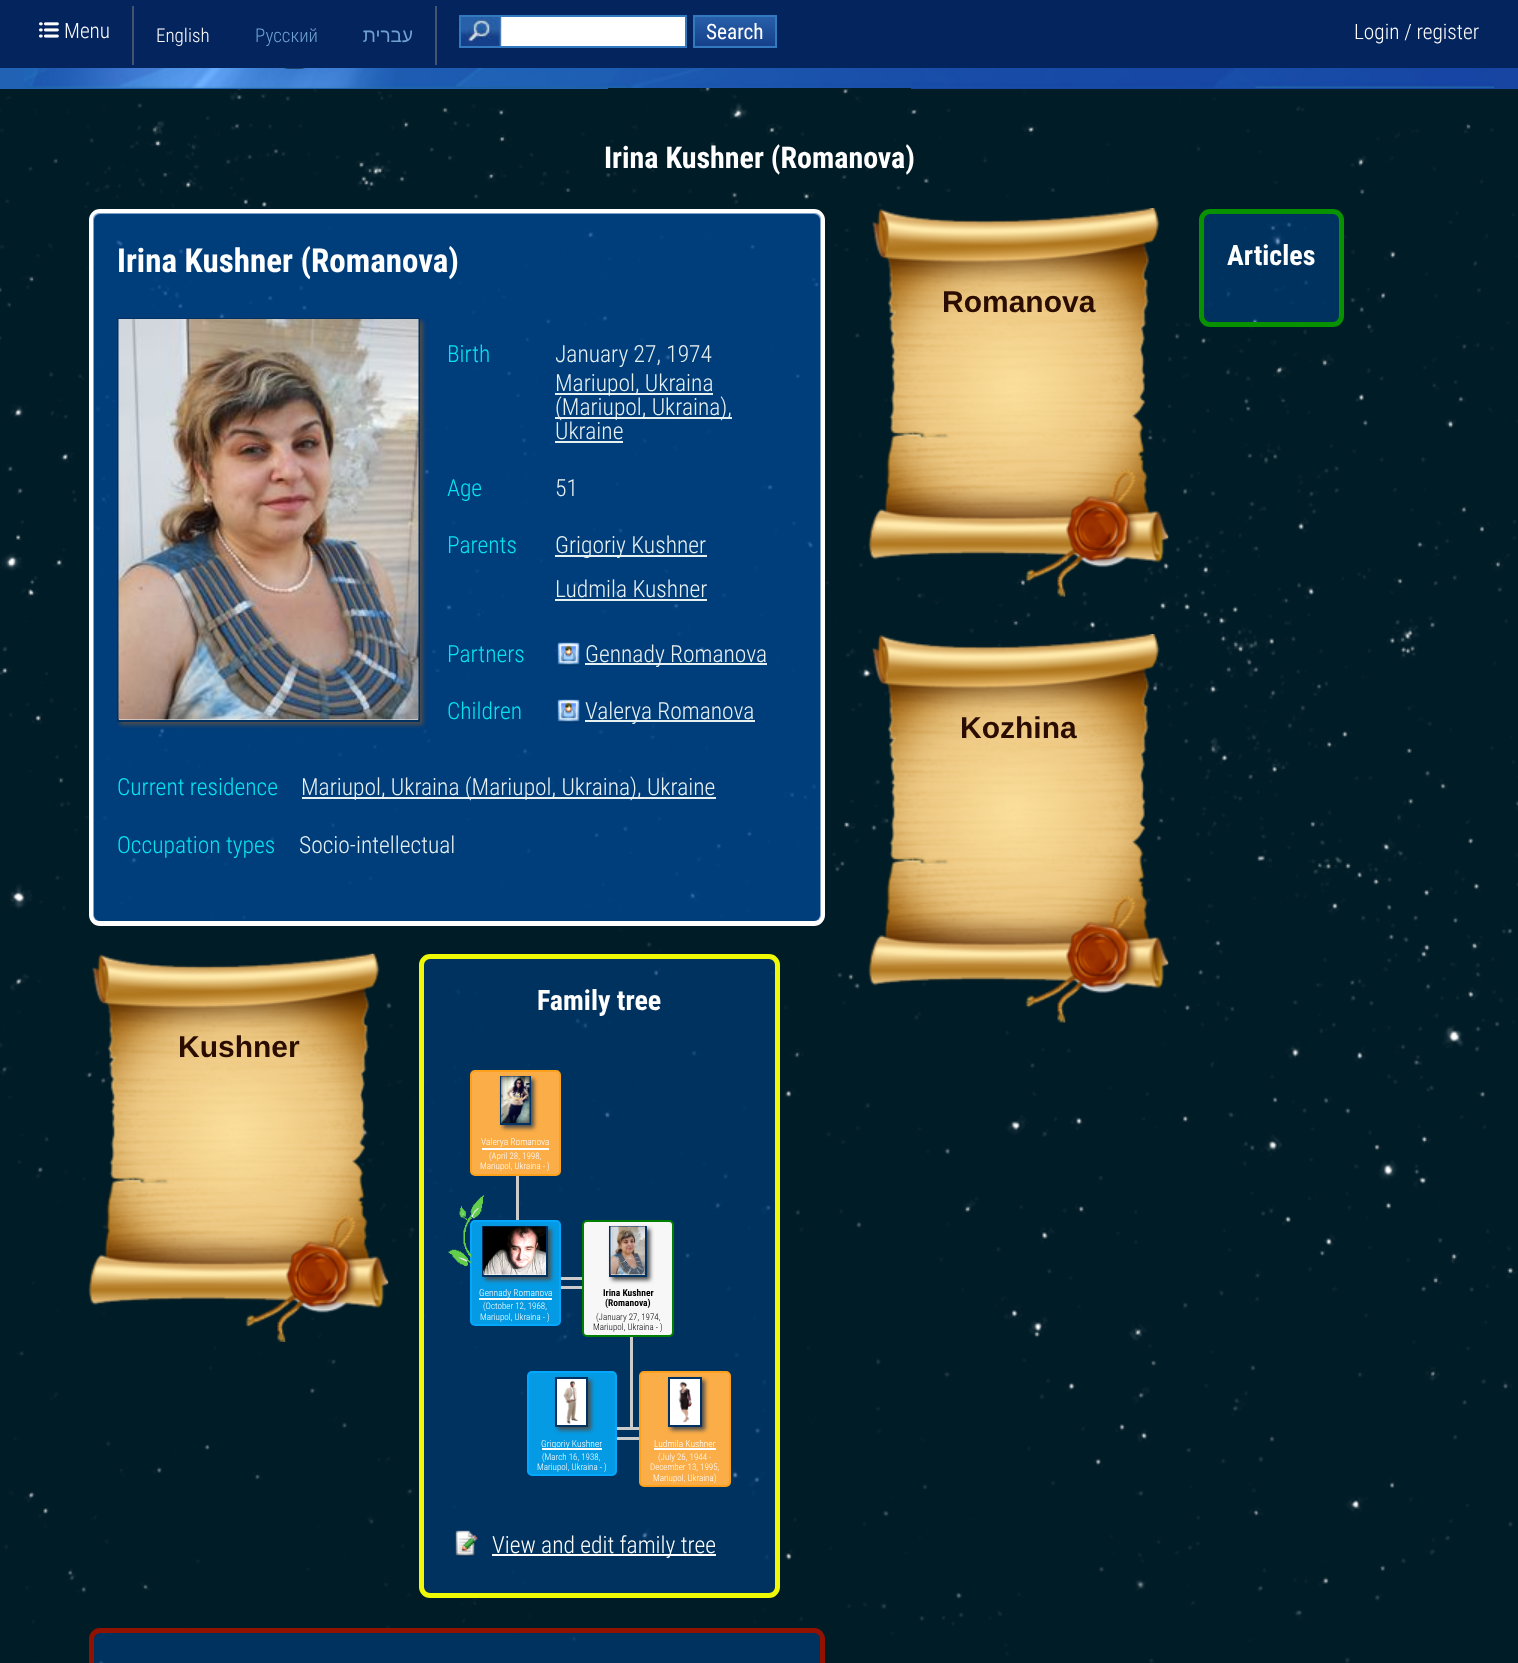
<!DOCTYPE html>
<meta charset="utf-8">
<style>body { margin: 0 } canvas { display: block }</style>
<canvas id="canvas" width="1518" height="1663"></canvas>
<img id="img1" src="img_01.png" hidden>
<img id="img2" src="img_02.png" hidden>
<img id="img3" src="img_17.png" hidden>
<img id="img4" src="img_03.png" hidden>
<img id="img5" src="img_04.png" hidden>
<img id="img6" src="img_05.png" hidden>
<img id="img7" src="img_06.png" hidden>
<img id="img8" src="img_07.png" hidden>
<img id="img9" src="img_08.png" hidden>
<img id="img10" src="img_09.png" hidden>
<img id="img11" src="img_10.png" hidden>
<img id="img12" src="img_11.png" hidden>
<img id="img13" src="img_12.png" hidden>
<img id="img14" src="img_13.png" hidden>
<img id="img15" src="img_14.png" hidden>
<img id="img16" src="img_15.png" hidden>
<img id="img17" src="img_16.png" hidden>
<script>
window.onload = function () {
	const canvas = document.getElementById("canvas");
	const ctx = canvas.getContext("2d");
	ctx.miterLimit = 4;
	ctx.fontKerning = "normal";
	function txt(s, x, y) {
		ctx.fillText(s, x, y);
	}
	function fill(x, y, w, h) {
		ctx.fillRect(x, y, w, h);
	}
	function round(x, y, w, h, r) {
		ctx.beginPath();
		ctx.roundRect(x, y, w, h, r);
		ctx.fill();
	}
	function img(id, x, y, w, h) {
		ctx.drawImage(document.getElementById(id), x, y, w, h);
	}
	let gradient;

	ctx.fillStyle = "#001C27";
	fill(0, 0, 1518, 1663);
	ctx.fillStyle = "#04245D";
	fill(0, 0, 1518, 68);
	img("img1", 39, 22, 20, 16);
	ctx.fillStyle = "#445371";
	fill(435, 6, 2, 59);
	fill(132, 6, 2, 59);
	ctx.fillStyle = "#FFFFFF";
	fill(500, 17, 185, 29);
	img("img2", 461, 17, 41, 29);
	ctx.strokeStyle = "#3379C0";
	ctx.lineWidth = 2;
	ctx.strokeRect(460, 16, 226, 31);
	gradient = ctx.createLinearGradient(735, 16, 735, 47);
	gradient.addColorStop(0, "#2860AA");
	gradient.addColorStop(1, "#153F89");
	ctx.fillStyle = gradient;
	fill(695, 17, 80, 29);
	ctx.strokeRect(694, 16, 82, 31);
	img("img3", 0, 88, 1518, 1575);
	ctx.fillStyle = "#2162B4";
	fill(0, 68, 608, 21);
	ctx.fillStyle = "#1845A2";
	fill(911, 68, 607, 21);
	img("img4", 24, 68, 1470, 20);
	ctx.fillStyle = "rgba(0, 71, 152, 0.5)";
	ctx.beginPath();
	ctx.roundRect(91.5, 211.5, 731, 712, 8.5);
	ctx.fill();
	ctx.strokeStyle = "#FFFFFF";
	ctx.lineWidth = 5;
	ctx.stroke();
	round(93, 213, 728, 708, 6);
	ctx.fillStyle = "#4D4D4D";
	ctx.filter = "blur(2px)";
	ctx.beginPath();
	ctx.rect(120, 321, 303, 404);
	ctx.fill();
	ctx.filter = "none";
	ctx.fillStyle = "#FFFFFF";
	fill(119, 719, 299, 1);
	ctx.strokeStyle = "#003163";
	ctx.lineWidth = 2;
	ctx.strokeRect(118, 319, 301, 402);
	img("img5", 118, 319, 301, 401);
	ctx.fillStyle = "#E6F1F2";
	fill(555, 393, 158, 2);
	fill(555, 417, 177, 2);
	fill(555, 441, 68, 2);
	fill(555, 555, 152, 2);
	fill(555, 599, 152, 2);
	img("img6", 557, 642, 23, 24);
	fill(585, 663, 182, 2);
	img("img7", 557, 699, 23, 24);
	fill(585, 720, 170, 2);
	fill(302, 797, 414, 2);
	img("img8", 868, 208, 301, 389);
	ctx.fillStyle = "rgba(0, 71, 152, 0.5)";
	ctx.beginPath();
	ctx.roundRect(1201.5, 211.5, 140, 113, 8.5);
	ctx.fill();
	ctx.strokeStyle = "#089201";
	ctx.lineWidth = 5;
	ctx.stroke();
	img("img9", 868, 634, 301, 389);
	img("img10", 88, 953, 301, 389);
	ctx.beginPath();
	ctx.roundRect(421.5, 956.5, 356, 639, 8.5);
	ctx.fill();
	ctx.strokeStyle = "#F0F905";
	ctx.stroke();
	ctx.fillStyle = "#FBAD47";
	ctx.beginPath();
	ctx.roundRect(471, 1071, 89, 104, 4);
	ctx.fill();
	ctx.strokeStyle = "#FDA11C";
	ctx.lineWidth = 2;
	ctx.stroke();
	ctx.fillStyle = "#4D4D4D";
	ctx.filter = "blur(2px)";
	ctx.beginPath();
	ctx.rect(503, 1079, 31, 49);
	ctx.fill();
	ctx.filter = "none";
	ctx.strokeStyle = "#003163";
	ctx.strokeRect(501, 1077, 29, 47);
	img("img11", 501, 1076, 29, 47);
	ctx.fillStyle = "#FFFFFF";
	fill(482, 1148, 67, 2);
	ctx.fillStyle = "#CCCCCC";
	fill(516, 1176, 3, 44);
	fill(561, 1277, 21, 3);
	fill(561, 1286, 21, 3);
	ctx.fillStyle = "#049BE4";
	ctx.beginPath();
	ctx.roundRect(471, 1221, 89, 104, 4);
	ctx.fill();
	ctx.strokeStyle = "#03A7FE";
	ctx.stroke();
	img("img12", 448, 1195, 36, 71);
	ctx.fillStyle = "#4D4D4D";
	ctx.filter = "blur(2px)";
	ctx.beginPath();
	ctx.rect(485, 1229, 66, 51);
	ctx.fill();
	ctx.filter = "none";
	ctx.fillStyle = "#FFFFFF";
	fill(484, 1274, 62, 1);
	ctx.strokeStyle = "#003163";
	ctx.strokeRect(483, 1227, 64, 49);
	img("img13", 483, 1226, 63, 49);
	fill(479, 1298, 73, 2);
	ctx.fillStyle = "#F7F7F7";
	ctx.beginPath();
	ctx.roundRect(583, 1221, 90, 115, 4);
	ctx.fill();
	ctx.strokeStyle = "#008000";
	ctx.stroke();
	ctx.fillStyle = "#4D4D4D";
	ctx.filter = "blur(2px)";
	ctx.beginPath();
	ctx.rect(612, 1229, 38, 51);
	ctx.fill();
	ctx.filter = "none";
	ctx.fillStyle = "#FFFFFF";
	fill(611, 1274, 34, 1);
	ctx.strokeStyle = "#003163";
	ctx.strokeRect(610, 1227, 36, 49);
	img("img14", 610, 1226, 35, 49);
	ctx.fillStyle = "#CCCCCC";
	fill(630, 1337, 3, 90);
	fill(617, 1427, 22, 3);
	fill(617, 1437, 22, 3);
	ctx.fillStyle = "#049BE4";
	ctx.beginPath();
	ctx.roundRect(528, 1372, 88, 103, 4);
	ctx.fill();
	ctx.strokeStyle = "#03A7FE";
	ctx.stroke();
	ctx.fillStyle = "#4D4D4D";
	ctx.filter = "blur(2px)";
	ctx.beginPath();
	ctx.rect(558, 1380, 33, 50);
	ctx.fill();
	ctx.filter = "none";
	ctx.fillStyle = "#FFFFFF";
	ctx.beginPath();
	ctx.rect(556, 1378, 31, 48);
	ctx.fill();
	ctx.strokeStyle = "#003163";
	ctx.stroke();
	img("img15", 563, 1380, 16, 44);
	fill(542, 1448, 60, 2);
	ctx.fillStyle = "#FBAD47";
	ctx.beginPath();
	ctx.roundRect(640, 1372, 90, 114, 4);
	ctx.fill();
	ctx.strokeStyle = "#FDA11C";
	ctx.stroke();
	ctx.fillStyle = "#4D4D4D";
	ctx.filter = "blur(2px)";
	ctx.beginPath();
	ctx.rect(671, 1380, 34, 50);
	ctx.fill();
	ctx.filter = "none";
	ctx.fillStyle = "#FFFFFF";
	ctx.beginPath();
	ctx.rect(669, 1378, 32, 48);
	ctx.fill();
	ctx.strokeStyle = "#003163";
	ctx.stroke();
	img("img16", 678, 1381, 14, 42);
	fill(654, 1448, 62, 2);
	img("img17", 455, 1530, 23, 27);
	fill(492, 1554, 224, 2);
	ctx.fillStyle = "rgba(0, 71, 152, 0.5)";
	ctx.beginPath();
	ctx.roundRect(91.5, 1630.5, 731, 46, 8.5);
	ctx.fill();
	ctx.strokeStyle = "#921201";
	ctx.lineWidth = 5;
	ctx.stroke();
	ctx.font = "300 21.25px Roboto Condensed";
	ctx.fillStyle = "#FFFFFF";
	txt("Menu", 64, 38);
	ctx.font = "300 19px Roboto Condensed";
	txt("English", 156, 42);
	ctx.fillStyle = "#6FA1D1";
	txt("Русский", 255, 42);
	ctx.direction = "rtl";
	ctx.font = "19px Liberation Sans";
	txt("עברית", 413, 42);
	ctx.direction = "ltr";
	ctx.font = "21.25px Roboto Condensed";
	ctx.fillStyle = "#FFFFFF";
	txt("Search", 706, 39);
	ctx.font = "300 21.25px Roboto Condensed";
	txt("Login / register", 1354, 39);
	ctx.font = "bold 30px Roboto Condensed";
	txt("Irina Kushner (Romanova)", 604, 168);
	ctx.font = "bold 33px Roboto Condensed";
	txt("Irina Kushner (Romanova)", 117, 272);
	ctx.font = "300 23.5px Roboto Condensed";
	ctx.fillStyle = "#07E3F2";
	txt("Birth", 447, 362);
	ctx.fillStyle = "#E6F1F2";
	txt("January 27, 1974", 555, 362);
	txt("Mariupol, Ukraina", 555, 391);
	txt("(Mariupol, Ukraina),", 555, 415);
	txt("Ukraine", 555, 439);
	ctx.fillStyle = "#07E3F2";
	txt("Age", 447, 496);
	ctx.fillStyle = "#E6F1F2";
	txt("51", 555, 496);
	ctx.fillStyle = "#07E3F2";
	txt("Parents", 447, 553);
	ctx.fillStyle = "#E6F1F2";
	txt("Grigoriy Kushner", 555, 553);
	txt("Ludmila Kushner", 555, 597);
	ctx.fillStyle = "#07E3F2";
	txt("Partners", 447, 662);
	ctx.fillStyle = "#E6F1F2";
	txt("Gennady Romanova", 585, 662);
	ctx.fillStyle = "#07E3F2";
	txt("Children", 447, 719);
	ctx.fillStyle = "#E6F1F2";
	txt("Valerya Romanova", 585, 719);
	ctx.fillStyle = "#07E3F2";
	txt("Current residence", 117, 795);
	ctx.fillStyle = "#E6F1F2";
	txt("Mariupol, Ukraina (Mariupol, Ukraina), Ukraine", 301, 795);
	ctx.fillStyle = "#07E3F2";
	txt("Occupation types", 117, 853);
	ctx.fillStyle = "#E6F1F2";
	txt("Socio-intellectual", 299, 853);
	ctx.font = "bold 30px Liberation Sans";
	ctx.fillStyle = "#2A0C01";
	txt("Romanova", 942, 312);
	ctx.font = "bold 28px Roboto Condensed";
	ctx.fillStyle = "#FFFFFF";
	txt("Articles", 1227, 265);
	ctx.font = "bold 30px Liberation Sans";
	ctx.fillStyle = "#2A0C01";
	txt("Kozhinа", 960, 738);
	txt("Kushner", 178, 1057);
	ctx.font = "bold 28px Roboto Condensed";
	ctx.fillStyle = "#FFFFFF";
	txt("Family tree", 537, 1010);
	ctx.font = "300 9.5px Roboto Condensed";
	txt("Valerya Romanova", 481, 1145);
	ctx.font = "300 9px Roboto Condensed";
	txt("(April 28, 1998,", 489, 1159);
	txt("Mariupol, Ukraina - )", 480, 1169);
	ctx.font = "300 9.5px Roboto Condensed";
	txt("Gennady Romanova", 479, 1296);
	ctx.font = "300 9px Roboto Condensed";
	txt("(October 12, 1968,", 483, 1309);
	txt("Mariupol, Ukraina - )", 480, 1320);
	ctx.font = "bold 9.5px Roboto Condensed";
	ctx.fillStyle = "#000000";
	txt("Irina Kushner", 603, 1296);
	txt("(Romanova)", 605, 1306);
	ctx.font = "300 9px Roboto Condensed";
	txt("(January 27, 1974,", 596, 1320);
	txt("Mariupol, Ukraina - )", 593, 1330);
	ctx.font = "300 9.5px Roboto Condensed";
	ctx.fillStyle = "#FFFFFF";
	txt("Grigoriy Kushner", 541, 1447);
	ctx.font = "300 9px Roboto Condensed";
	txt("(March 16, 1938,", 542, 1460);
	txt("Mariupol, Ukraina - )", 537, 1470);
	ctx.font = "300 9.5px Roboto Condensed";
	txt("Ludmila Kushner", 654, 1447);
	ctx.font = "300 9px Roboto Condensed";
	txt("(July 26, 1944 -", 658, 1460);
	txt("December 13, 1995,", 650, 1470);
	txt("Mariupol, Ukraina)", 653, 1481);
	ctx.font = "300 23.5px Roboto Condensed";
	txt("View and edit family tree", 492, 1553);
};
</script>
